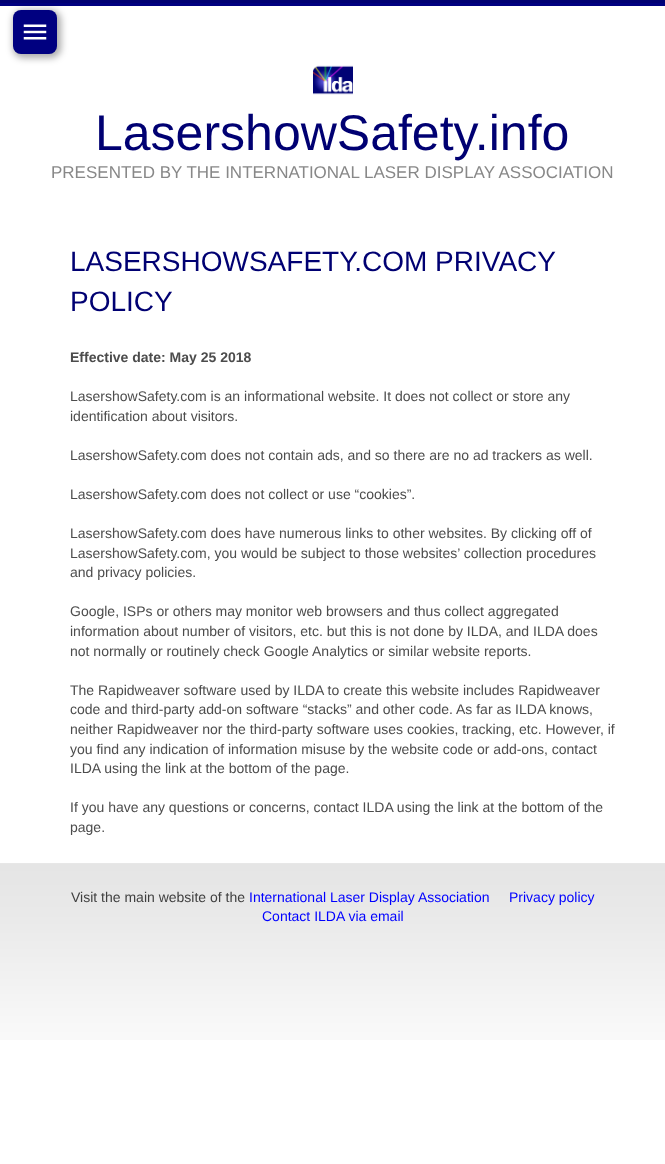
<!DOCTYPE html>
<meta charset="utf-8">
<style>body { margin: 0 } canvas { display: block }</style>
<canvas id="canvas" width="665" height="1164"></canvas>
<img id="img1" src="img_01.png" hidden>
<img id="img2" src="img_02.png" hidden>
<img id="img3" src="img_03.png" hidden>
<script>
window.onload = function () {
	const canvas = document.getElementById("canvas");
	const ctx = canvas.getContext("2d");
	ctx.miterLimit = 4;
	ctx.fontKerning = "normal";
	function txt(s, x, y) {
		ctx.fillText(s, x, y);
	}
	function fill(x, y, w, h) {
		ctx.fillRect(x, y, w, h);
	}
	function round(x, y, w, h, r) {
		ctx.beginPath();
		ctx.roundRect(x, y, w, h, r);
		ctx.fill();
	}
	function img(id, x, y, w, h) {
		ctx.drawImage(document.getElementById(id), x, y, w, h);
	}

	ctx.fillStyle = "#FFFFFF";
	fill(0, 0, 665, 1164);
	ctx.fillStyle = "#000072";
	fill(0, 0, 665, 3);
	ctx.fillStyle = "#000080";
	fill(0, 3, 665, 3);
	ctx.fillStyle = "rgba(0, 0, 0, 0.33)";
	ctx.filter = "blur(3.5px)";
	ctx.beginPath();
	ctx.roundRect(13, 10, 48, 48, 10);
	ctx.fill();
	ctx.filter = "none";
	ctx.fillStyle = "#000080";
	round(13, 10, 44, 44, 8);
	img("img1", 23, 24, 24, 16);
	img("img2", 313, 65, 40, 30);
	img("img3", 0, 863, 665, 177);
	ctx.font = "50px Liberation Sans";
	ctx.fillStyle = "#000072";
	txt("LasershowSafety.info", 95, 150);
	ctx.font = "17px Liberation Sans";
	ctx.fillStyle = "#888888";
	txt("PRESENTED BY THE INTERNATIONAL LASER DISPLAY ASSOCIATION", 51, 178);
	ctx.font = "28px Liberation Sans";
	ctx.fillStyle = "#000072";
	txt("LASERSHOWSAFETY.COM PRIVACY", 70, 271);
	txt("POLICY", 70, 311);
	ctx.font = "bold 14px Liberation Sans";
	ctx.fillStyle = "#4C4C4C";
	txt("Effective date: May 25 2018", 70, 362);
	ctx.font = "14px Liberation Sans";
	txt("LasershowSafety.com is an informational website. It does not collect or store any", 70, 401);
	txt("identification about visitors.", 70, 421);
	txt("LasershowSafety.com does not contain ads, and so there are no ad trackers as well.", 70, 460);
	txt("LasershowSafety.com does not collect or use “cookies”.", 70, 499);
	txt("LasershowSafety.com does have numerous links to other websites. By clicking off of", 70, 538);
	txt("LasershowSafety.com, you would be subject to those websites’ collection procedures", 70, 558);
	txt("and privacy policies.", 70, 577);
	txt("Google, ISPs or others may monitor web browsers and thus collect aggregated", 70, 616);
	txt("information about number of visitors, etc. but this is not done by ILDA, and ILDA does", 70, 636);
	txt("not normally or routinely check Google Analytics or similar website reports.", 70, 656);
	txt("The Rapidweaver software used by ILDA to create this website includes Rapidweaver", 70, 695);
	txt("code and third-party add-on software “stacks” and other code. As far as ILDA knows,", 70, 714);
	txt("neither Rapidweaver nor the third-party software uses cookies, tracking, etc. However, if", 70, 734);
	txt("you find any indication of information misuse by the website code or add-ons, contact", 70, 754);
	txt("ILDA using the link at the bottom of the page.", 70, 773);
	txt("If you have any questions or concerns, contact ILDA using the link at the bottom of the", 70, 812);
	txt("page.", 70, 832);
	ctx.fillStyle = "#3F3F3F";
	txt("Visit the main website of the", 71, 902);
	ctx.fillStyle = "#0000FF";
	txt("International Laser Display Association", 249, 902);
	txt("Privacy policy", 509, 902);
	txt("Contact ILDA via email", 262, 921);
};
</script>
